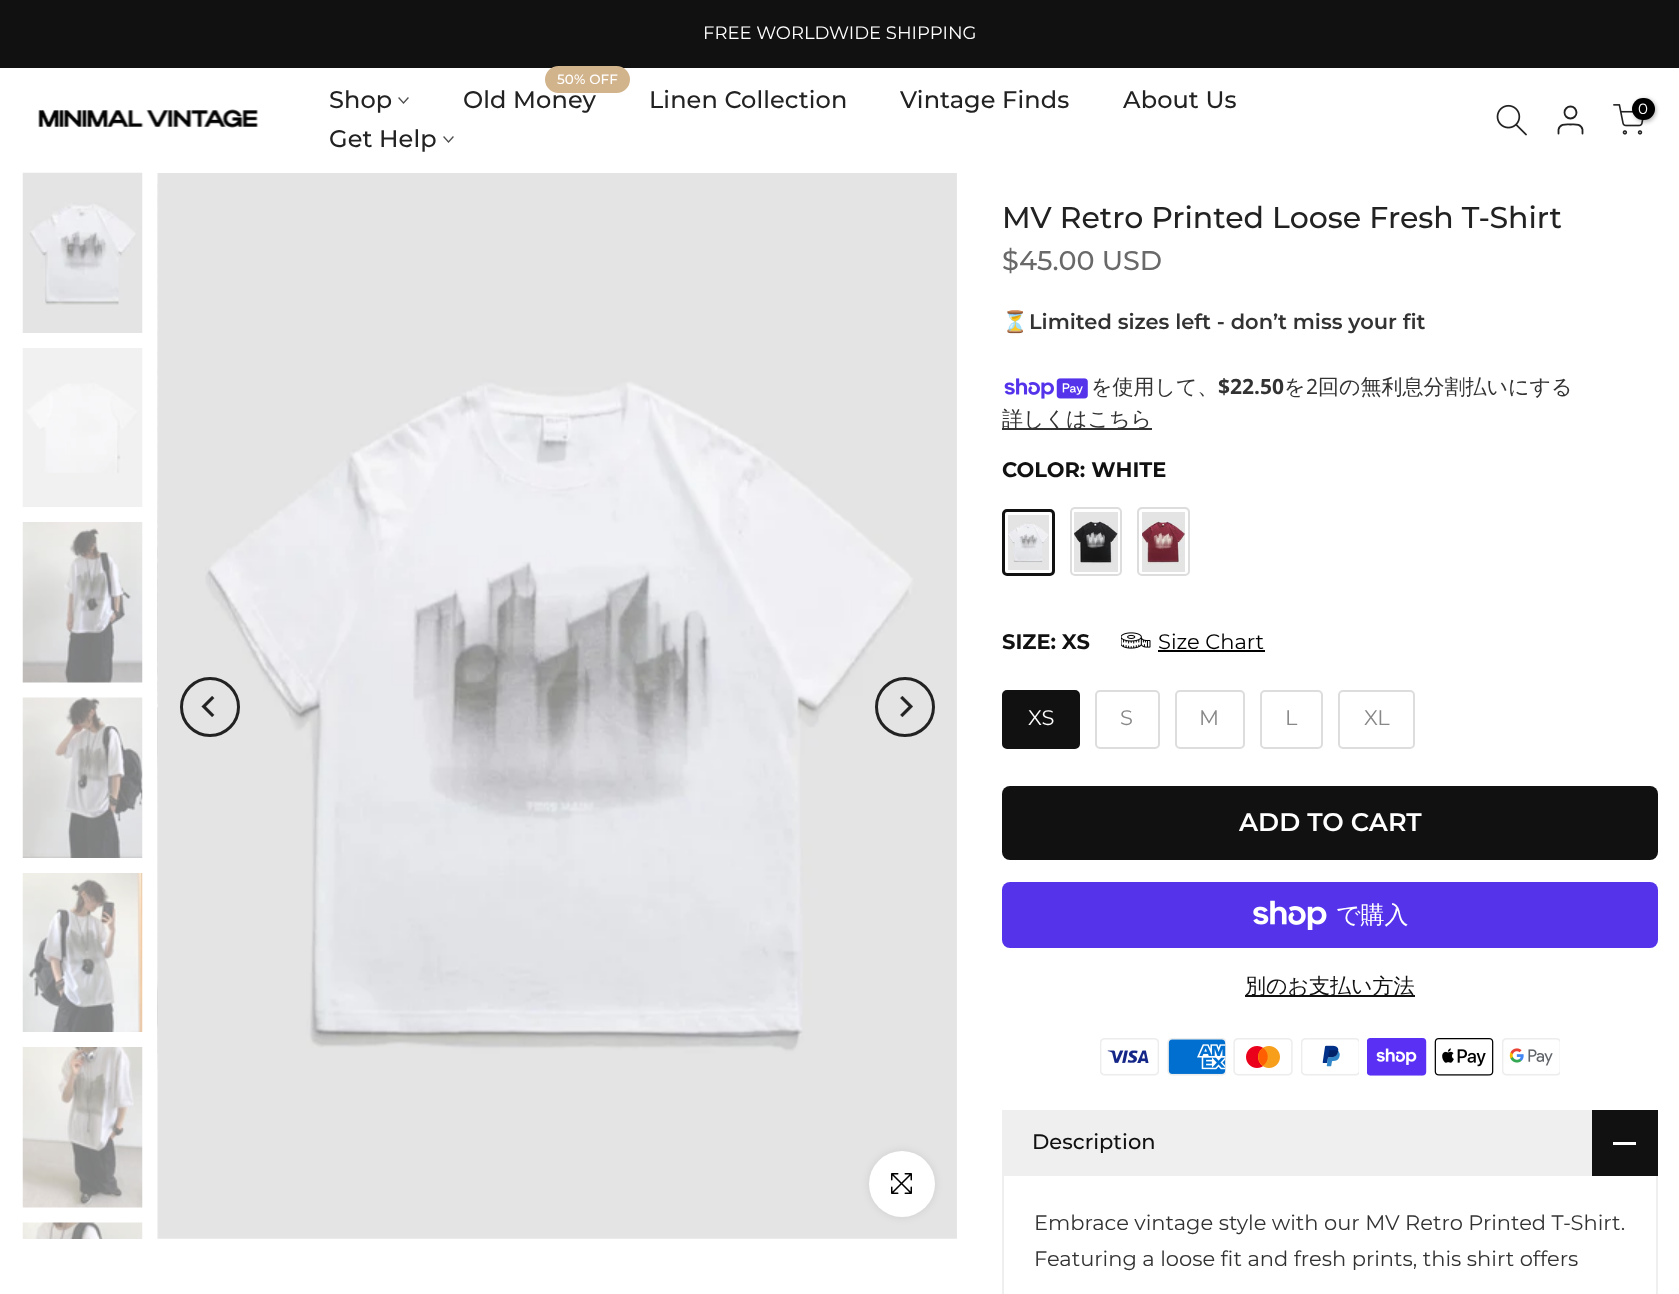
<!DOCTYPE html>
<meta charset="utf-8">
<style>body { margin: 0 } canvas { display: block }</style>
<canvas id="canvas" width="1679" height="1294"></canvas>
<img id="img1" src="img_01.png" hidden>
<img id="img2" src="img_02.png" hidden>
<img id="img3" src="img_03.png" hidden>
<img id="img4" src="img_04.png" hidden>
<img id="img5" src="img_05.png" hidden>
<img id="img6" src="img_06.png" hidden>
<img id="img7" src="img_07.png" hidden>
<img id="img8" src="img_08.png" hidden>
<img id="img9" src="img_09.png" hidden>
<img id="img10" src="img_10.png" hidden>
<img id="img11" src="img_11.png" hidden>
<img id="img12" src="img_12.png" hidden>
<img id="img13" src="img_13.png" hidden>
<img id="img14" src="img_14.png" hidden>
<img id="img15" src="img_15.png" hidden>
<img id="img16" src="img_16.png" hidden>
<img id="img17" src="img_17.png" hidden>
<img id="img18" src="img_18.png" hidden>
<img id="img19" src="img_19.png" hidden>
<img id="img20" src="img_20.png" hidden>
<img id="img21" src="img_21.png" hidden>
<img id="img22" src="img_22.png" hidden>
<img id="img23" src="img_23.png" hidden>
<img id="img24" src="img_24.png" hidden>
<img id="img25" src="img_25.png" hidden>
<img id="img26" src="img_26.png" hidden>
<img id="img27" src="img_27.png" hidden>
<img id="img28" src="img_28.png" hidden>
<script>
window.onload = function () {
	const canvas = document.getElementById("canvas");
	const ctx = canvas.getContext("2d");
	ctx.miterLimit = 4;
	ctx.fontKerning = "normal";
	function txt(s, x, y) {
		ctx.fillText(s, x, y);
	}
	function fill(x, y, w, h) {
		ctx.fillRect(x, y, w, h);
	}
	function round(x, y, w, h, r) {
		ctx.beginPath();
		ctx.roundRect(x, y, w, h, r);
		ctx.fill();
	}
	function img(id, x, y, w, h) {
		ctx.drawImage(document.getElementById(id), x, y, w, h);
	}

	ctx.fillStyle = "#FFFFFF";
	fill(0, 0, 1679, 1294);
	ctx.fillStyle = "#111111";
	fill(0, 0, 1679, 68);
	img("img1", 38, 109, 221, 19);
	ctx.beginPath();
	ctx.moveTo(408, 98);
	ctx.lineTo(403.5, 103);
	ctx.lineTo(399, 98);
	ctx.strokeStyle = "#4E4E4E";
	ctx.lineWidth = 1.3;
	ctx.lineCap = "square";
	ctx.stroke();
	ctx.beginPath();
	ctx.moveTo(453, 137);
	ctx.lineTo(448.5, 142);
	ctx.lineTo(444, 137);
	ctx.stroke();
	img("img2", 1496, 104, 31, 32);
	ctx.beginPath();
	ctx.arc(1570.5, 112.5, 6, 0, Math.PI * 2);
	ctx.strokeStyle = "#222222";
	ctx.lineWidth = 1.8;
	ctx.stroke();
	ctx.beginPath();
	ctx.moveTo(1582.5, 133.5);
	ctx.lineTo(1582.5, 129.5);
	ctx.bezierCurveTo(1581, 123.5, 1575, 124.5, 1570.5, 124.5);
	ctx.bezierCurveTo(1566, 124.5, 1560, 123.5, 1558.5, 129.5);
	ctx.lineTo(1558.5, 133.5);
	ctx.lineCap = "round";
	ctx.lineJoin = "round";
	ctx.stroke();
	img("img3", 1613, 104, 31, 31);
	ctx.fillStyle = "rgba(0, 0, 0, 0.3)";
	ctx.filter = "blur(2px)";
	ctx.beginPath();
	ctx.roundRect(1634, 99, 22, 23, 11);
	ctx.fill();
	ctx.filter = "none";
	ctx.fillStyle = "#000000";
	round(1632, 98, 23, 22, 11);
	img("img4", 22, 172, 121, 161);
	img("img5", 22, 348, 121, 159);
	img("img6", 22, 522, 121, 161);
	img("img7", 22, 697, 121, 161);
	img("img8", 22, 873, 121, 159);
	img("img9", 22, 1047, 121, 161);
	img("img10", 22, 1222, 121, 17);
	img("img11", 157, 173, 800, 1066);
	img("img12", 157, 184, 1, 885);
	ctx.beginPath();
	ctx.arc(210, 707, 28.5, 0, Math.PI * 2);
	ctx.lineWidth = 3;
	ctx.stroke();
	img("img13", 201, 696, 14, 21);
	ctx.beginPath();
	ctx.arc(905, 707, 28.5, 0, Math.PI * 2);
	ctx.stroke();
	img("img14", 900, 696, 13, 21);
	ctx.fillStyle = "rgba(0, 0, 0, 0.09)";
	ctx.filter = "blur(4px)";
	ctx.beginPath();
	ctx.roundRect(869, 1151, 66, 66, 33);
	ctx.fill();
	ctx.filter = "none";
	ctx.fillStyle = "#FFFFFF";
	ctx.beginPath();
	ctx.arc(902, 1184, 33, 0, Math.PI * 2);
	ctx.fill();
	img("img15", 891, 1173, 21, 21);
	img("img16", 1004, 378, 84, 21);
	ctx.fillStyle = "#333333";
	fill(1002, 428, 150, 2);
	img("img17", 1005, 512, 47, 61);
	ctx.beginPath();
	ctx.rect(1006.5, 513.5, 44, 58);
	ctx.strokeStyle = "#FFFFFF";
	ctx.lineJoin = "miter";
	ctx.stroke();
	ctx.beginPath();
	ctx.roundRect(1003.5, 510.5, 50, 64, 3.5);
	ctx.strokeStyle = "#111111";
	ctx.stroke();
	img("img18", 1071, 508, 50, 67);
	ctx.beginPath();
	ctx.roundRect(1072.5, 510.5, 47, 63, 1.5);
	ctx.strokeStyle = "#FFFFFF";
	ctx.stroke();
	ctx.beginPath();
	ctx.roundRect(1071, 508, 50, 67, 4);
	ctx.strokeStyle = "#DDDDDD";
	ctx.lineWidth = 2;
	ctx.stroke();
	img("img19", 1138, 508, 50, 67);
	ctx.beginPath();
	ctx.roundRect(1140.5, 510.5, 46, 63, 1.5);
	ctx.strokeStyle = "#FFFFFF";
	ctx.lineWidth = 3;
	ctx.stroke();
	ctx.beginPath();
	ctx.roundRect(1138, 508, 51, 67, 4);
	ctx.strokeStyle = "#DDDDDD";
	ctx.lineWidth = 2;
	ctx.stroke();
	img("img20", 1121, 632, 30, 17);
	ctx.fillStyle = "#000000";
	fill(1158, 650, 107, 2);
	ctx.fillStyle = "#111111";
	ctx.beginPath();
	ctx.roundRect(1003, 691, 76, 57, 4);
	ctx.fill();
	ctx.strokeStyle = "#111111";
	ctx.stroke();
	ctx.beginPath();
	ctx.roundRect(1096, 691, 63, 57, 4);
	ctx.strokeStyle = "#DDDDDD";
	ctx.stroke();
	ctx.beginPath();
	ctx.roundRect(1176, 691, 68, 57, 4);
	ctx.stroke();
	ctx.beginPath();
	ctx.roundRect(1261, 691, 61, 57, 4);
	ctx.stroke();
	ctx.beginPath();
	ctx.roundRect(1339, 691, 75, 57, 4);
	ctx.stroke();
	round(1002, 786, 656, 74, 8);
	ctx.fillStyle = "#5433EB";
	round(1002, 882, 656, 66, 8);
	img("img21", 1253, 900, 74, 30);
	ctx.fillStyle = "#111111";
	fill(1245, 995, 170, 2);
	img("img22", 1100, 1038, 59, 38);
	img("img23", 1167, 1038, 59, 38);
	img("img24", 1233, 1038, 60, 38);
	img("img25", 1301, 1038, 58, 38);
	img("img26", 1367, 1038, 60, 38);
	img("img27", 1434, 1038, 60, 38);
	img("img28", 1502, 1038, 58, 38);
	ctx.fillStyle = "#EFEFEF";
	fill(1002, 1110, 590, 66);
	ctx.fillStyle = "#111111";
	fill(1592, 1110, 66, 66);
	ctx.fillStyle = "#FFFFFF";
	fill(1613, 1142, 23, 3);
	ctx.fillStyle = "#EFEFEF";
	ctx.beginPath();
	ctx.moveTo(1658, 1176);
	ctx.lineTo(1658, 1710);
	ctx.lineTo(1656, 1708);
	ctx.lineTo(1656, 1176);
	ctx.closePath();
	ctx.fill();
	ctx.beginPath();
	ctx.moveTo(1002, 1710);
	ctx.lineTo(1002, 1176);
	ctx.lineTo(1004, 1176);
	ctx.lineTo(1004, 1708);
	ctx.closePath();
	ctx.fill();
	ctx.font = "18px Montserrat";
	ctx.fillStyle = "#FFFFFF";
	txt("FREE WORLDWIDE SHIPPING", 703, 39);
	ctx.letterSpacing = "0.1px";
	ctx.font = "500 24px Montserrat";
	ctx.fillStyle = "#222222";
	txt("Shop", 329, 108);
	txt("Old Money", 463, 108);
	ctx.fillStyle = "#D2B48C";
	round(545, 66, 85, 27, 13.5);
	ctx.font = "500 13.5px Montserrat";
	ctx.fillStyle = "#FFFFFF";
	txt("50% OFF", 557, 84);
	ctx.font = "500 24px Montserrat";
	ctx.fillStyle = "#222222";
	txt("Linen Collection", 649, 108);
	txt("Vintage Finds", 900, 108);
	txt("About Us", 1123, 108);
	txt("Get Help", 329, 147);
	ctx.letterSpacing = "0px";
	ctx.font = "15px Montserrat";
	ctx.fillStyle = "#FFFFFF";
	txt("0", 1638, 114);
	ctx.font = "500 30px Montserrat";
	ctx.fillStyle = "#222222";
	txt("MV Retro Printed Loose Fresh T-Shirt", 1002, 228);
	ctx.font = "500 27px Montserrat";
	ctx.fillStyle = "#696969";
	txt("$45.00 USD", 1002, 270);
	ctx.font = "bold 21px Noto Color Emoji";
	ctx.fillStyle = "#333333";
	txt("⏳", 1002, 329);
	ctx.font = "600 21px Montserrat";
	txt("Limited sizes left - don’t miss your fit", 1029, 329);
	ctx.font = "500 21px WenQuanYi Zen Hei";
	txt("を使用して、", 1091, 394);
	ctx.font = "bold 21px Noto Sans";
	txt("$22.50", 1218, 394);
	ctx.font = "500 21px WenQuanYi Zen Hei";
	txt("を", 1284, 394);
	ctx.font = "21px Noto Sans";
	txt("2", 1306, 394);
	ctx.font = "500 21px WenQuanYi Zen Hei";
	txt("回の無利息分割払いにする", 1318, 394);
	txt("詳しくはこちら", 1002, 426);
	ctx.font = "bold 21px Montserrat";
	ctx.fillStyle = "#111111";
	txt("COLOR: WHITE", 1002, 477);
	txt("SIZE: XS", 1002, 649);
	ctx.font = "21px Montserrat";
	ctx.fillStyle = "#000000";
	txt("Size Chart", 1158, 649);
	ctx.fillStyle = "#FFFFFF";
	txt("XS", 1028, 725);
	ctx.fillStyle = "#878787";
	txt("S", 1120, 725);
	txt("M", 1199, 725);
	txt("L", 1285, 725);
	txt("XL", 1364, 725);
	ctx.font = "600 25.5px Montserrat";
	ctx.fillStyle = "#FFFFFF";
	txt("ADD TO CART", 1239, 831);
	ctx.font = "500 24px WenQuanYi Zen Hei";
	txt("で購入", 1336, 923);
	ctx.font = "500 21px WenQuanYi Zen Hei";
	ctx.fillStyle = "#111111";
	txt("別のお支払い方法", 1245, 993);
	ctx.font = "500 21px Montserrat";
	txt("Description", 1032, 1149);
	ctx.font = "21px Montserrat";
	ctx.fillStyle = "#333333";
	txt("Embrace vintage style with our MV Retro Printed T-Shirt.", 1034, 1230);
	txt("Featuring a loose fit and fresh prints, this shirt offers", 1034, 1266);
};
</script>
